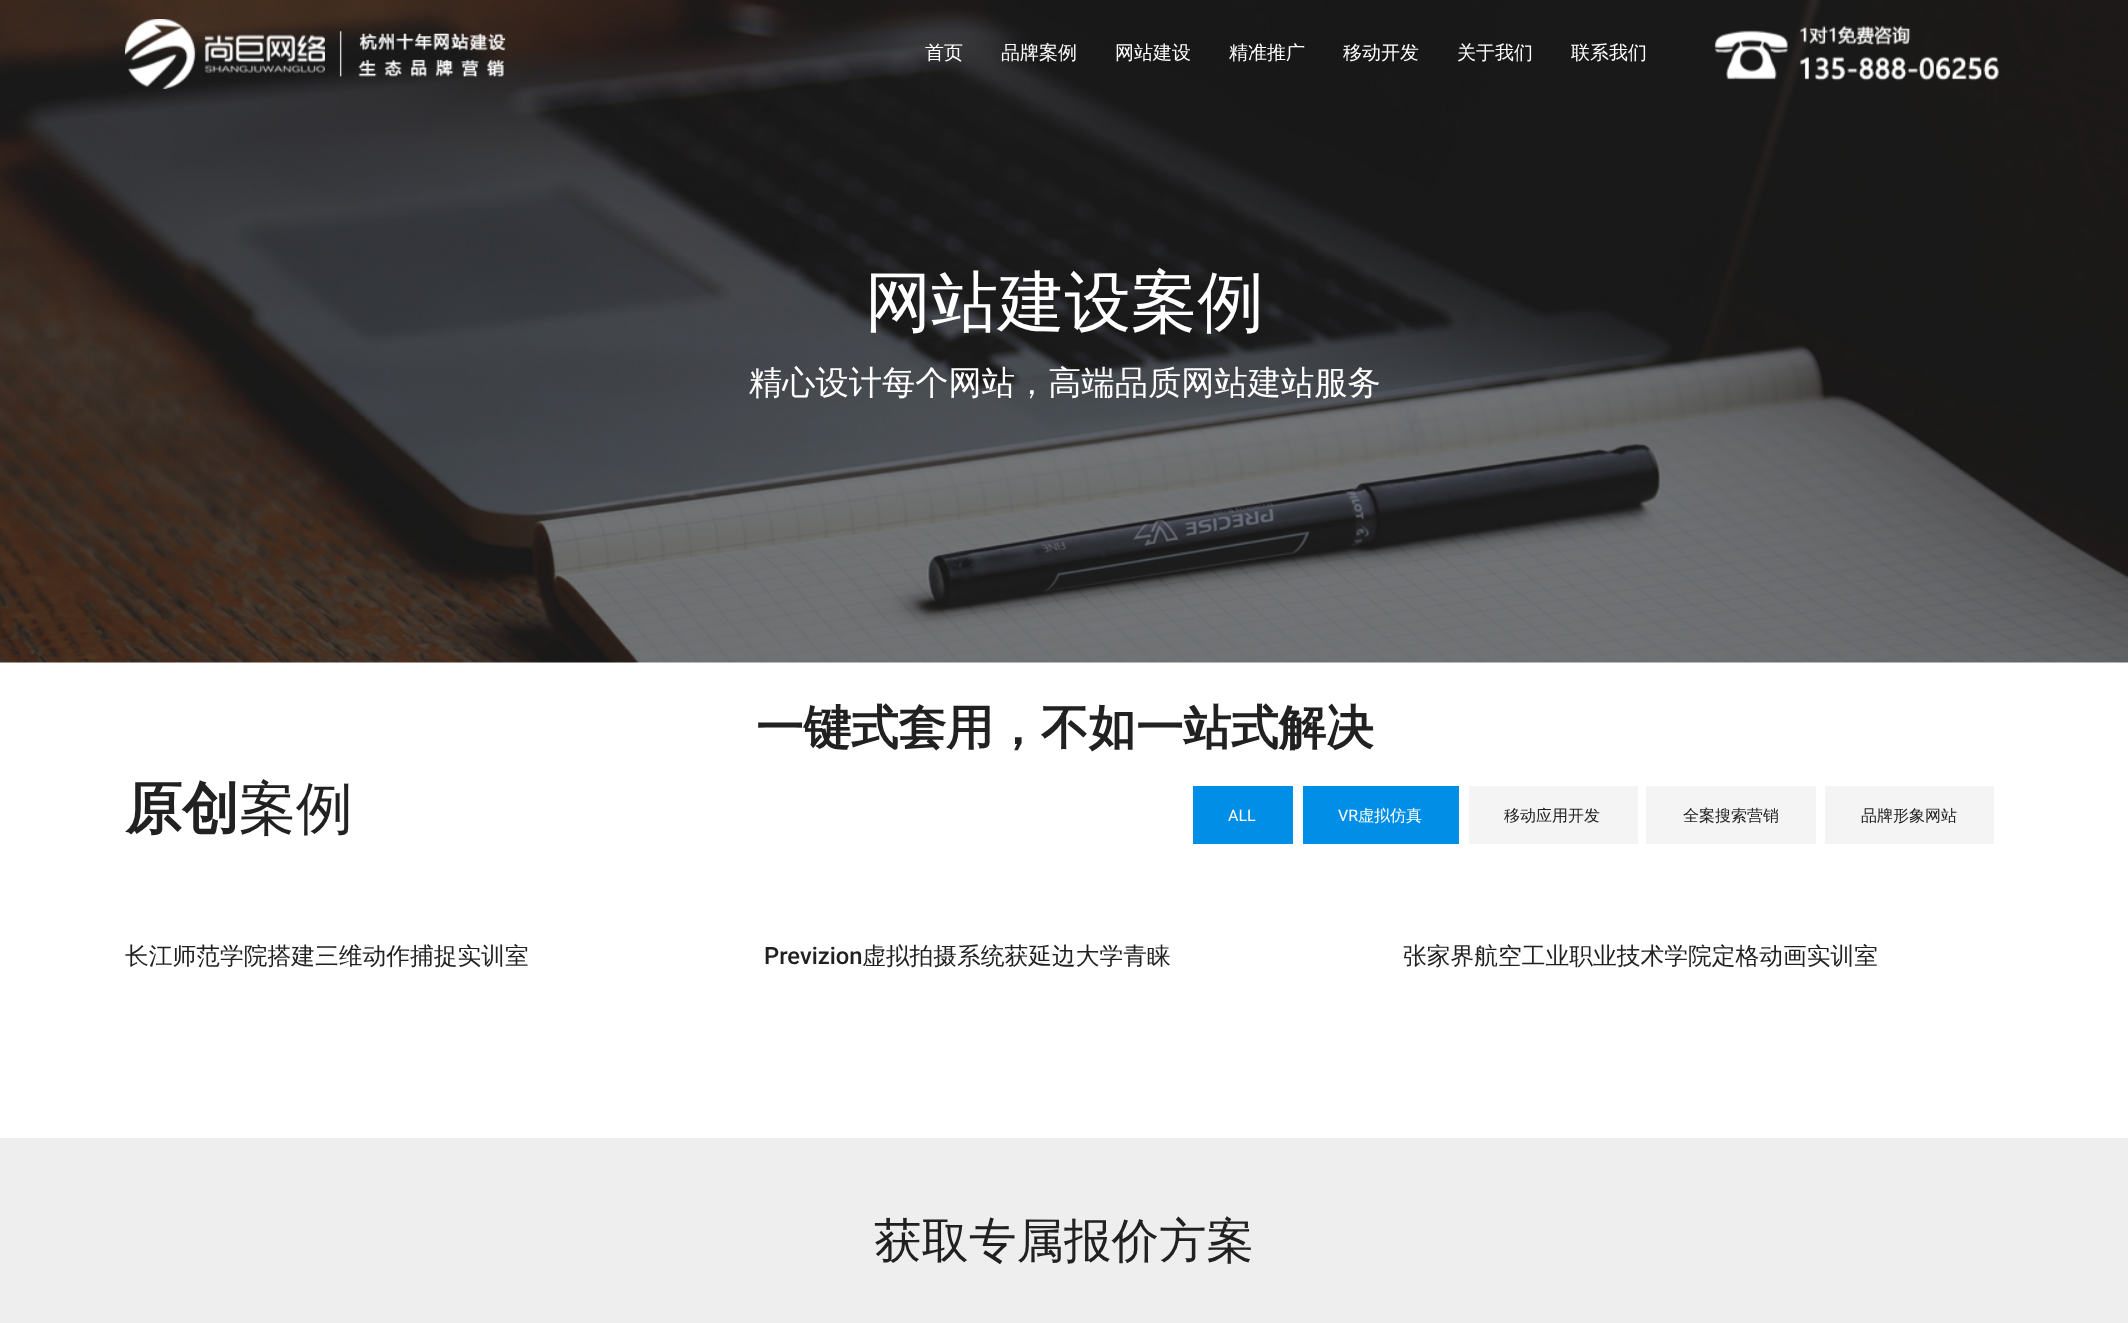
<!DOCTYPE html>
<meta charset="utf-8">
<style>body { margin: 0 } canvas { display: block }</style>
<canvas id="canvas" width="2128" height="1323"></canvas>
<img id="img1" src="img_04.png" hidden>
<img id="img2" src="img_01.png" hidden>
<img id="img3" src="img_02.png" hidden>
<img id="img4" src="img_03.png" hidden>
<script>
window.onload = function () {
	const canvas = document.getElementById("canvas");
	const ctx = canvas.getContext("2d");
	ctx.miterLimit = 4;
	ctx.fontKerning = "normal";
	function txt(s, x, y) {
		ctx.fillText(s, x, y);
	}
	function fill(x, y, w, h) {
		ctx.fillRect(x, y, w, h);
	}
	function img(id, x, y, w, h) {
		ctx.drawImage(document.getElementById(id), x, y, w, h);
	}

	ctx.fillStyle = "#FFFFFF";
	fill(0, 0, 2128, 1323);
	img("img1", 0, 0, 2128, 663);
	img("img2", 125, 19, 200, 70);
	img("img3", 339, 31, 167, 47);
	img("img4", 1714, 25, 285, 56);
	ctx.fillStyle = "#008EE6";
	fill(1193, 786, 100, 58);
	fill(1303, 786, 156, 58);
	ctx.fillStyle = "#F4F4F4";
	fill(1469, 786, 169, 58);
	fill(1646, 786, 170, 58);
	fill(1825, 786, 169, 58);
	ctx.fillStyle = "#EEEEEE";
	fill(0, 1138, 2128, 185);
	ctx.font = "500 19px WenQuanYi Zen Hei";
	ctx.fillStyle = "#FFFFFF";
	txt("首页", 925, 59);
	txt("品牌案例", 1001, 59);
	txt("网站建设", 1115, 59);
	txt("精准推广", 1229, 59);
	txt("移动开发", 1343, 59);
	txt("关于我们", 1457, 59);
	txt("联系我们", 1571, 59);
	ctx.font = "500 66.5px WenQuanYi Zen Hei";
	txt("网站建设案例", 865, 325);
	ctx.font = "500 33.25px WenQuanYi Zen Hei";
	txt("精心设计每个网站，高端品质网站建站服务", 749, 394);
	ctx.font = "bold 47.5px WenQuanYi Zen Hei";
	ctx.fillStyle = "#212122";
	txt("一键式套用，不如一站式解决", 756, 744);
	ctx.font = "bold 57px WenQuanYi Zen Hei";
	txt("原创", 125, 828);
	ctx.font = "500 57px WenQuanYi Zen Hei";
	txt("案例", 239, 828);
	ctx.font = "16px Roboto";
	ctx.fillStyle = "#FFFFFF";
	txt("ALL", 1228, 821);
	txt("VR", 1338, 821);
	ctx.font = "500 16px WenQuanYi Zen Hei";
	txt("虚拟仿真", 1358, 821);
	ctx.fillStyle = "#212122";
	txt("移动应用开发", 1504, 821);
	txt("全案搜索营销", 1683, 821);
	txt("品牌形象网站", 1861, 821);
	ctx.font = "500 23.75px WenQuanYi Zen Hei";
	txt("长江师范学院搭建三维动作捕捉实训室", 125, 964);
	ctx.font = "500 23.75px Roboto";
	txt("Previzion", 764, 964);
	ctx.font = "500 23.75px WenQuanYi Zen Hei";
	txt("虚拟拍摄系统获延边大学青睐", 862, 964);
	txt("张家界航空工业职业技术学院定格动画实训室", 1403, 964);
	ctx.font = "500 47.5px WenQuanYi Zen Hei";
	txt("获取专属报价方案", 874, 1257);
};
</script>
